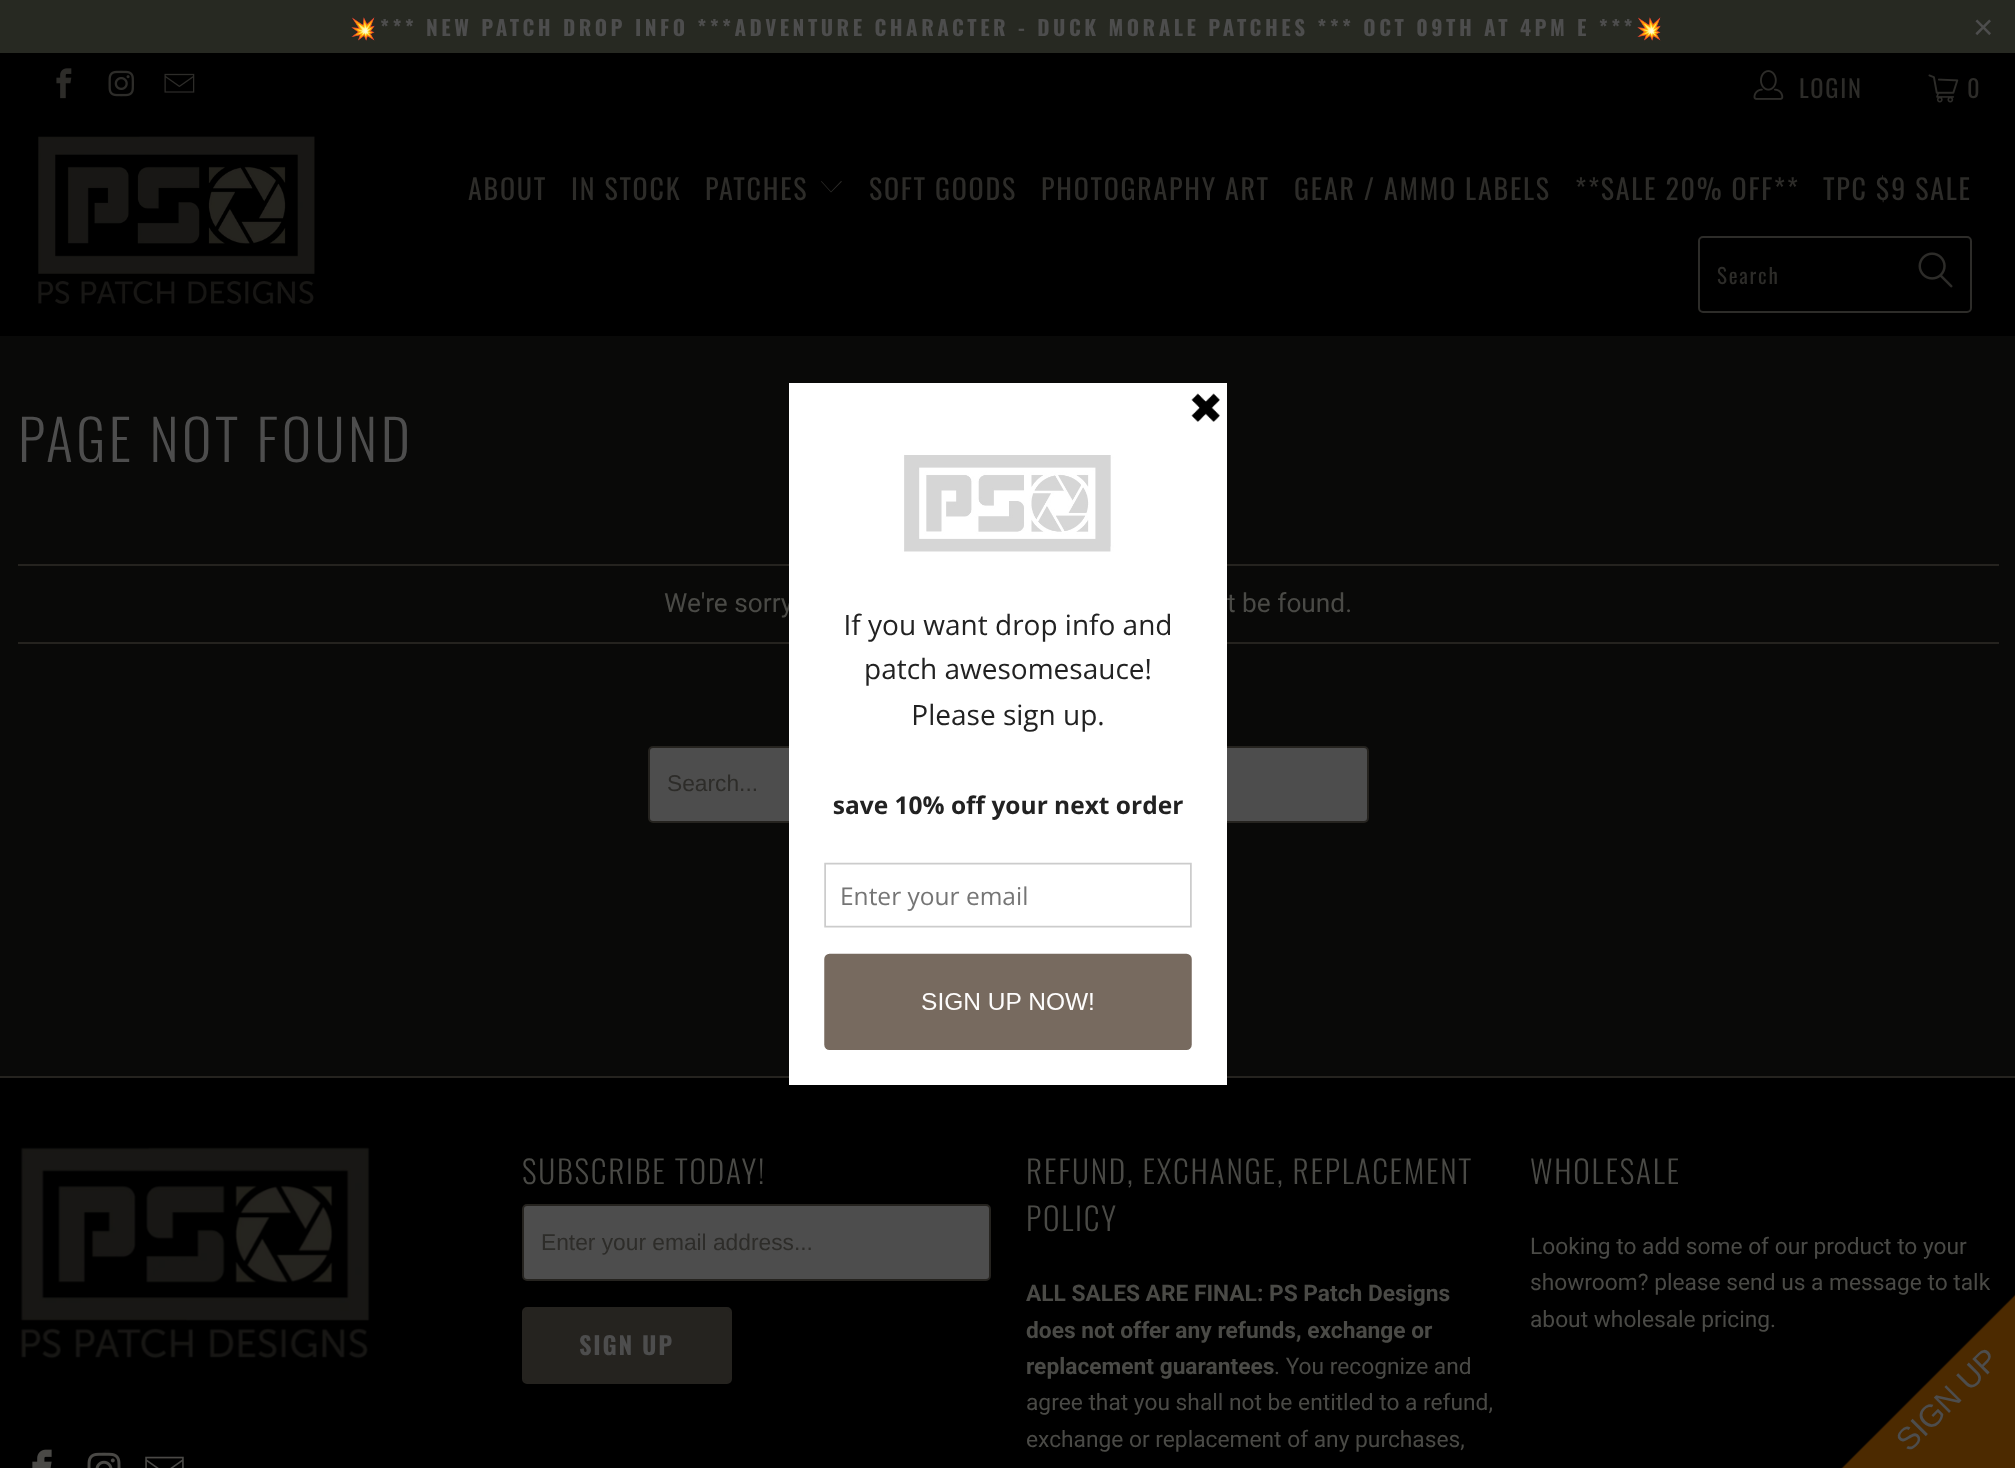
<!DOCTYPE html>
<meta charset="utf-8">
<style>body { margin: 0 } canvas { display: block }</style>
<canvas id="canvas" width="2015" height="1468"></canvas>
<img id="img1" src="img_01.png" hidden>
<img id="img2" src="img_02.png" hidden>
<img id="img3" src="img_03.png" hidden>
<img id="img4" src="img_04.png" hidden>
<img id="img5" src="img_05.png" hidden>
<img id="img6" src="img_06.png" hidden>
<img id="img7" src="img_07.png" hidden>
<img id="img8" src="img_09.png" hidden>
<img id="img9" src="img_10.png" hidden>
<img id="img10" src="img_11.png" hidden>
<img id="img11" src="img_12.png" hidden>
<img id="img12" src="img_08.png" hidden>
<img id="img13" src="img_13.png" hidden>
<script>
window.onload = function () {
	const canvas = document.getElementById("canvas");
	const ctx = canvas.getContext("2d");
	ctx.miterLimit = 4;
	ctx.fontKerning = "normal";
	function txt(s, x, y) {
		ctx.fillText(s, x, y);
	}
	function fill(x, y, w, h) {
		ctx.fillRect(x, y, w, h);
	}
	function img(id, x, y, w, h) {
		ctx.drawImage(document.getElementById(id), x, y, w, h);
	}

	ctx.fillStyle = "#090908";
	fill(0, 0, 2015, 1468);
	ctx.fillStyle = "#272922";
	fill(0, 0, 2015, 53);
	ctx.fillStyle = "#000000";
	fill(0, 53, 2015, 283);
	img("img1", 56, 68, 16, 31);
	img("img2", 108, 70, 26, 27);
	img("img3", 164, 73, 31, 20);
	img("img4", 1753, 70, 31, 30);
	img("img5", 1928, 74, 31, 29);
	img("img6", 38, 136, 277, 168);
	ctx.fillStyle = "#2D2C29";
	ctx.beginPath();
	ctx.moveTo(831, 192.5);
	ctx.lineTo(821, 181.5);
	ctx.lineTo(821.5, 181);
	ctx.lineTo(831, 191.5);
	ctx.lineTo(841, 181);
	ctx.lineTo(842, 181.5);
	ctx.closePath();
	ctx.fill();
	ctx.beginPath();
	ctx.roundRect(1699, 237, 272, 75, 4);
	ctx.strokeStyle = "#2D2C29";
	ctx.lineWidth = 2;
	ctx.stroke();
	img("img7", 1918, 252, 35, 36);
	ctx.fillStyle = "#25231F";
	fill(18, 564, 1981, 2);
	fill(18, 642, 1981, 2);
	ctx.fillStyle = "#4D4D4D";
	ctx.beginPath();
	ctx.roundRect(649, 747, 719, 75, 4);
	ctx.fill();
	ctx.strokeStyle = "#25231F";
	ctx.stroke();
	ctx.fillStyle = "#000000";
	fill(0, 1078, 2015, 390);
	ctx.fillStyle = "#25231F";
	fill(0, 1076, 2015, 2);
	img("img8", 20, 1147, 350, 212);
	img("img9", 32, 1449, 20, 19);
	img("img10", 87, 1452, 34, 16);
	img("img11", 145, 1456, 39, 12);
	ctx.fillStyle = "#4D4D4D";
	ctx.beginPath();
	ctx.roundRect(523, 1205, 467, 75, 4);
	ctx.fill();
	ctx.stroke();
	ctx.fillStyle = "#25231F";
	ctx.beginPath();
	ctx.roundRect(523, 1308, 208, 75, 4);
	ctx.fill();
	ctx.stroke();
	ctx.letterSpacing = "3.5px";
	ctx.font = "21px Noto Color Emoji";
	ctx.fillStyle = "#4D4D4D";
	txt("💥", 350, 36);
	ctx.font = "bold 21px Oswald";
	txt("*** NEW PATCH DROP INFO ***ADVENTURE CHARACTER - DUCK MORALE PATCHES *** OCT 09TH AT 4PM E ***", 380, 36);
	ctx.font = "21px Noto Color Emoji";
	txt("💥", 1636, 36);
	ctx.font = "35px Liberation Sans";
	txt("×", 1973, 39);
	ctx.letterSpacing = "1.75px";
	ctx.font = "24.5px Oswald";
	ctx.fillStyle = "#2D2C29";
	txt("LOGIN", 1799, 98);
	txt("0", 1967, 98);
	ctx.font = "28px Oswald";
	txt("ABOUT", 468, 200);
	txt("IN STOCK", 571, 200);
	txt("PATCHES", 705, 200);
	txt("SOFT GOODS", 869, 200);
	txt("PHOTOGRAPHY ART", 1041, 200);
	txt("GEAR / AMMO LABELS", 1294, 200);
	txt("**SALE 20% OFF**", 1575, 200);
	txt("TPC $9 SALE", 1823, 200);
	ctx.font = "21px Oswald";
	txt("Search", 1717, 284);
	ctx.letterSpacing = "3.5px";
	ctx.font = "300 56px Oswald";
	ctx.fillStyle = "#4D4D4D";
	txt("PAGE NOT FOUND", 18, 462);
	ctx.letterSpacing = "0px";
	ctx.font = "26.25px Roboto";
	ctx.fillStyle = "#4A4A46";
	txt("We're sorry", 664, 612);
	img("img12", 789, 383, 438, 702);
	txt("t be found.", 1227, 612);
	ctx.font = "22.75px Liberation Sans";
	ctx.fillStyle = "#2D2C29";
	txt("Search...", 667, 791);
	ctx.letterSpacing = "1.75px";
	ctx.font = "300 31.5px Oswald";
	ctx.fillStyle = "#4A4A46";
	txt("SUBSCRIBE TODAY!", 522, 1184);
	ctx.letterSpacing = "0px";
	ctx.font = "22.75px Liberation Sans";
	ctx.fillStyle = "#2D2C29";
	txt("Enter your email address...", 541, 1250);
	ctx.letterSpacing = "1.75px";
	ctx.font = "bold 24.5px Oswald";
	ctx.fillStyle = "#4D4D4D";
	txt("SIGN UP", 579, 1355);
	ctx.font = "300 31.5px Oswald";
	ctx.fillStyle = "#4A4A46";
	txt("REFUND, EXCHANGE, REPLACEMENT", 1026, 1184);
	txt("POLICY", 1026, 1231);
	ctx.letterSpacing = "0px";
	ctx.font = "bold 22.75px Roboto";
	txt("ALL SALES ARE FINAL: PS Patch Designs", 1026, 1301);
	txt("does not offer any refunds, exchange or", 1026, 1338);
	txt("replacement guarantees", 1026, 1374);
	ctx.font = "22.75px Roboto";
	txt(". You recognize and", 1274, 1374);
	txt("agree that you shall not be entitled to a refund,", 1026, 1410);
	txt("exchange or replacement of any purchases,", 1026, 1447);
	ctx.letterSpacing = "1.75px";
	ctx.font = "300 31.5px Oswald";
	txt("WHOLESALE", 1530, 1184);
	ctx.letterSpacing = "0px";
	ctx.font = "22.75px Roboto";
	txt("Looking to add some of our product to your", 1530, 1254);
	txt("showroom? please send us a message to talk", 1530, 1290);
	txt("about wholesale pricing.", 1530, 1327);
	img("img13", 1841, 1294, 174, 174);
	ctx.font = "31.5px Liberation Sans";
	ctx.fillStyle = "#4D4D4D";
	ctx.save();
	ctx.translate(1909, 1453);
	ctx.rotate(-45 * Math.PI / 180);
	ctx.fillText("SIGN UP", 0, 0);
	ctx.restore();
};
</script>
